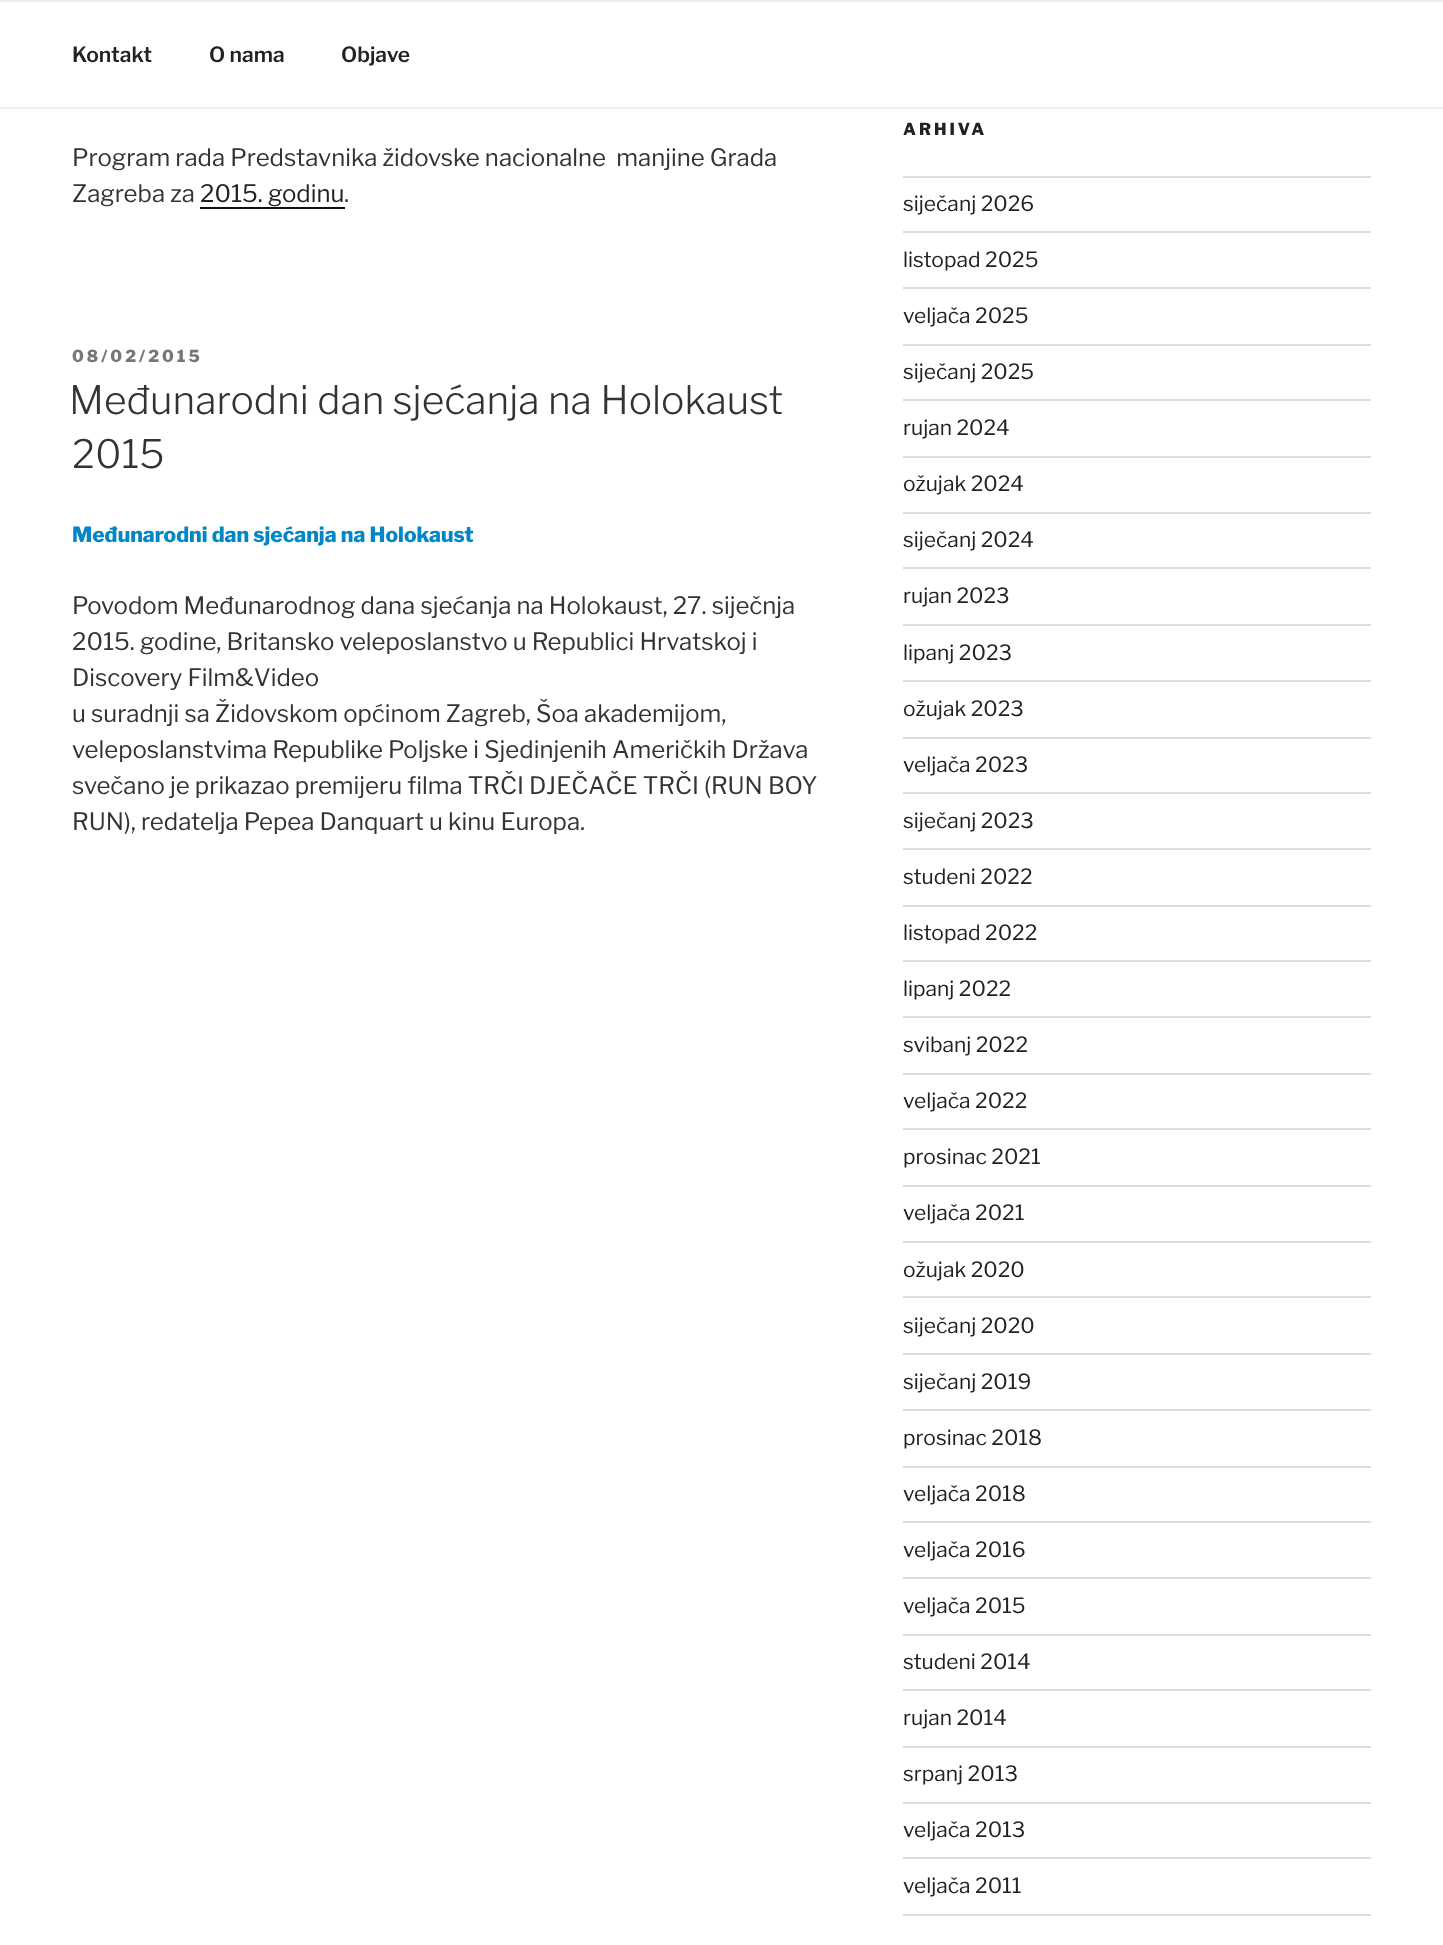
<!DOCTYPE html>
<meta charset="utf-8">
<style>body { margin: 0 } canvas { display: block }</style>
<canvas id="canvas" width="1443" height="1945"></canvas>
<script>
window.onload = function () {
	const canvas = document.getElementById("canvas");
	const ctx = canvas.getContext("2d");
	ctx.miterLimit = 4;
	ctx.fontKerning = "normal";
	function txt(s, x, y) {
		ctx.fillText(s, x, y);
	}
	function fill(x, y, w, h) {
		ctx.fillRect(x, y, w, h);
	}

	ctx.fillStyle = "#FFFFFF";
	fill(0, 0, 1443, 1945);
	ctx.fillStyle = "#EEEEEE";
	fill(0, 0, 1443, 2);
	fill(0, 107, 1443, 2);
	ctx.fillStyle = "#0F0F0F";
	fill(200, 207, 145, 2);
	ctx.fillStyle = "#DDDDDD";
	fill(903, 176, 468, 2);
	fill(903, 231, 468, 2);
	fill(903, 287, 468, 2);
	fill(903, 344, 468, 2);
	fill(903, 399, 468, 2);
	fill(903, 456, 468, 2);
	fill(903, 512, 468, 2);
	fill(903, 567, 468, 2);
	fill(903, 624, 468, 2);
	fill(903, 680, 468, 2);
	fill(903, 737, 468, 2);
	fill(903, 792, 468, 2);
	fill(903, 848, 468, 2);
	fill(903, 905, 468, 2);
	fill(903, 960, 468, 2);
	fill(903, 1016, 468, 2);
	fill(903, 1073, 468, 2);
	fill(903, 1128, 468, 2);
	fill(903, 1185, 468, 2);
	fill(903, 1241, 468, 2);
	fill(903, 1296, 468, 2);
	fill(903, 1353, 468, 2);
	fill(903, 1409, 468, 2);
	fill(903, 1466, 468, 2);
	fill(903, 1521, 468, 2);
	fill(903, 1577, 468, 2);
	fill(903, 1634, 468, 2);
	fill(903, 1689, 468, 2);
	fill(903, 1746, 468, 2);
	fill(903, 1802, 468, 2);
	fill(903, 1857, 468, 2);
	fill(903, 1914, 468, 2);
	ctx.font = "100 21px 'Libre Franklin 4'";
	ctx.fillStyle = "#222222";
	txt("Kontakt", 72, 62);
	txt("O nama", 209, 62);
	txt("Objave", 341, 62);
	ctx.font = "100 24px Libre Franklin";
	ctx.fillStyle = "#333333";
	txt("Program rada Predstavnika židovske nacionalne  manjine Grada", 72, 166);
	txt("Zagreba za", 72, 202);
	ctx.fillStyle = "#222222";
	txt("2015. godinu", 200, 202);
	ctx.fillStyle = "#333333";
	txt(".", 344, 202);
	ctx.letterSpacing = "3px";
	ctx.font = "100 16.5px 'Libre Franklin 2'";
	ctx.fillStyle = "#767676";
	txt("08/02/2015", 72, 362);
	ctx.letterSpacing = "0px";
	ctx.font = "100 39px 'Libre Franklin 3'";
	ctx.fillStyle = "#333333";
	txt("Međunarodni dan sjećanja na Holokaust", 69, 414);
	txt("2015", 72, 468);
	ctx.font = "100 21px 'Libre Franklin 2'";
	ctx.fillStyle = "#0186C6";
	txt("Međunarodni dan sjećanja na Holokaust", 72, 542);
	ctx.font = "100 24px Libre Franklin";
	ctx.fillStyle = "#333333";
	txt("Povodom Međunarodnog dana sjećanja na Holokaust, 27. siječnja", 72, 614);
	txt("2015. godine, Britansko veleposlanstvo u Republici Hrvatskoj i", 72, 650);
	txt("Discovery Film&Video", 72, 686);
	txt("u suradnji sa Židovskom općinom Zagreb, Šoa akademijom,", 72, 722);
	txt("veleposlanstvima Republike Poljske i Sjedinjenih Američkih Država", 72, 758);
	txt("svečano je prikazao premijeru filma TRČI DJEČAČE TRČI (RUN BOY", 72, 794);
	txt("RUN), redatelja Pepea Danquart u kinu Europa.", 72, 830);
	ctx.letterSpacing = "3px";
	ctx.font = "100 16.5px 'Libre Franklin 2'";
	ctx.fillStyle = "#222222";
	txt("ARHIVA", 903, 135);
	ctx.letterSpacing = "0px";
	ctx.font = "100 21px Libre Franklin";
	txt("siječanj 2026", 903, 211);
	txt("listopad 2025", 903, 267);
	txt("veljača 2025", 903, 323);
	txt("siječanj 2025", 903, 379);
	txt("rujan 2024", 903, 435);
	txt("ožujak 2024", 903, 491);
	txt("siječanj 2024", 903, 547);
	txt("rujan 2023", 903, 603);
	txt("lipanj 2023", 903, 660);
	txt("ožujak 2023", 903, 716);
	txt("veljača 2023", 903, 772);
	txt("siječanj 2023", 903, 828);
	txt("studeni 2022", 903, 884);
	txt("listopad 2022", 903, 940);
	txt("lipanj 2022", 903, 996);
	txt("svibanj 2022", 903, 1052);
	txt("veljača 2022", 903, 1108);
	txt("prosinac 2021", 903, 1164);
	txt("veljača 2021", 903, 1220);
	txt("ožujak 2020", 903, 1277);
	txt("siječanj 2020", 903, 1333);
	txt("siječanj 2019", 903, 1389);
	txt("prosinac 2018", 903, 1445);
	txt("veljača 2018", 903, 1501);
	txt("veljača 2016", 903, 1557);
	txt("veljača 2015", 903, 1613);
	txt("studeni 2014", 903, 1669);
	txt("rujan 2014", 903, 1725);
	txt("srpanj 2013", 903, 1781);
	txt("veljača 2013", 903, 1837);
	txt("veljača 2011", 903, 1893);
};
</script>
